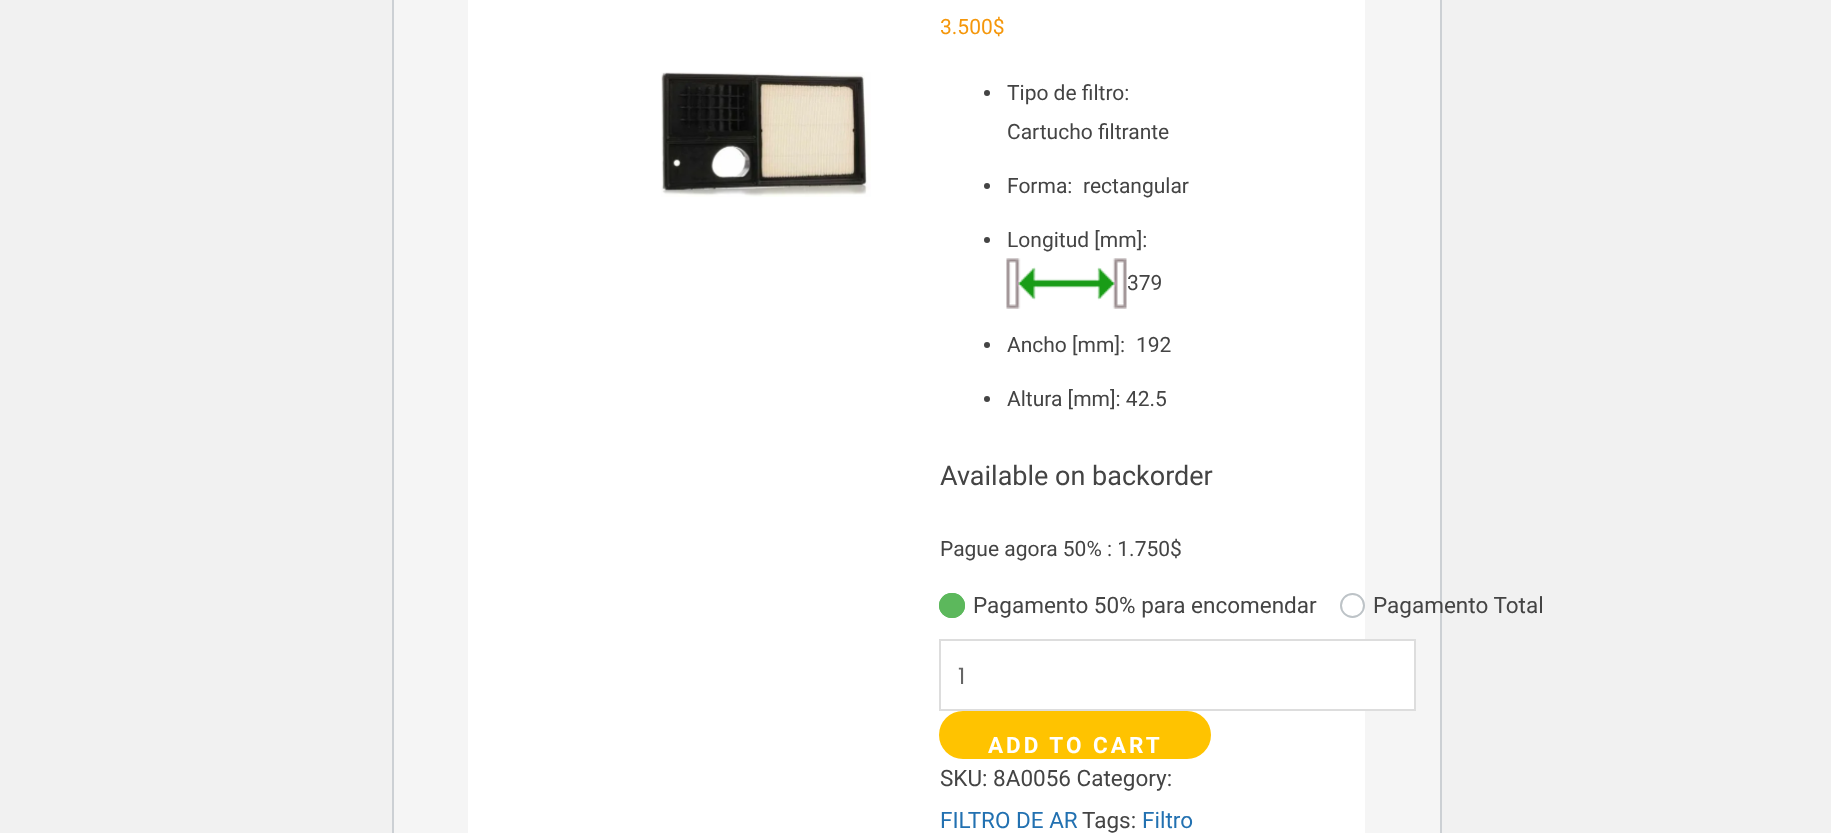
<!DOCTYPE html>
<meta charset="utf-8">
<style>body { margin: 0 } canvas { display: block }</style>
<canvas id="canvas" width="1831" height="833"></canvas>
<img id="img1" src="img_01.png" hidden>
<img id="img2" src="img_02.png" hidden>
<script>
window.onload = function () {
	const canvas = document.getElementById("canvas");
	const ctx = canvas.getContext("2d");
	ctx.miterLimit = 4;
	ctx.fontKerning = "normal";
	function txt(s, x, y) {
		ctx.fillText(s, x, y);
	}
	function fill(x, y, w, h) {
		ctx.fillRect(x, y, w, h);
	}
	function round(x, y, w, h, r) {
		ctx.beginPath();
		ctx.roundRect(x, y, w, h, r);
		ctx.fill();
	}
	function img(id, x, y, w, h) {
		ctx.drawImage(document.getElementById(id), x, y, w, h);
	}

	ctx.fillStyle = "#F1F1F1";
	fill(0, 0, 1831, 833);
	ctx.fillStyle = "#F5F5F5";
	ctx.beginPath();
	ctx.rect(393, -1, 1048, 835);
	ctx.fill();
	ctx.strokeStyle = "#CCD0D4";
	ctx.lineWidth = 2;
	ctx.stroke();
	ctx.fillStyle = "#FFFFFF";
	fill(468, 0, 897, 833);
	img("img1", 661, 72, 210, 125);
	ctx.fillStyle = "#444444";
	ctx.beginPath();
	ctx.arc(987, 93, 3, 0, Math.PI * 2);
	ctx.fill();
	ctx.beginPath();
	ctx.arc(987, 186, 3, 0, Math.PI * 2);
	ctx.fill();
	ctx.beginPath();
	ctx.arc(987, 240, 3, 0, Math.PI * 2);
	ctx.fill();
	img("img2", 1006, 258, 121, 51);
	ctx.beginPath();
	ctx.arc(987, 345, 3, 0, Math.PI * 2);
	ctx.fill();
	ctx.beginPath();
	ctx.arc(987, 399, 3, 0, Math.PI * 2);
	ctx.fill();
	ctx.beginPath();
	ctx.roundRect(940, 594, 24, 23, 11.5);
	ctx.strokeStyle = "#5CB85C";
	ctx.stroke();
	ctx.fillStyle = "#5CB85C";
	round(939, 593, 26, 25, 12.5);
	ctx.beginPath();
	ctx.arc(1352.5, 605.5, 11.5, 0, Math.PI * 2);
	ctx.strokeStyle = "#BDC3C7";
	ctx.stroke();
	ctx.fillStyle = "#FFFFFF";
	fill(1365, 641, 49, 68);
	ctx.strokeStyle = "#DDDDDD";
	ctx.strokeRect(940, 640, 475, 70);
	ctx.fillStyle = "#FFC300";
	round(939, 711, 272, 48, 24);
	ctx.font = "21px Roboto";
	ctx.fillStyle = "#F5970B";
	txt("3.500$", 940, 34);
	ctx.fillStyle = "#444444";
	txt("Tipo de filtro:", 1007, 100);
	txt("Cartucho filtrante", 1007, 139);
	txt("Forma:", 1007, 193);
	txt("rectangular", 1083, 193);
	txt("Longitud [mm]:", 1007, 247);
	txt("379", 1127, 290);
	txt("Ancho [mm]:", 1007, 352);
	txt("192", 1136, 352);
	txt("Altura [mm]: 42.5", 1007, 406);
	ctx.font = "27px Roboto";
	txt("Available on backorder", 940, 485);
	ctx.font = "21px Roboto";
	txt("Pague agora 50% : 1.750$", 940, 556);
	ctx.font = "22.5px Roboto";
	txt("Pagamento 50% para encomendar", 973, 613);
	txt("Pagamento Total", 1373, 613);
	ctx.font = "22.5px Poppins";
	ctx.fillStyle = "#666666";
	txt("1", 958, 684);
	ctx.letterSpacing = "3px";
	ctx.font = "bold 22.5px Roboto";
	ctx.fillStyle = "#FFFFFF";
	txt("ADD TO CART", 988, 753);
	ctx.letterSpacing = "0px";
	ctx.font = "22.5px Roboto";
	ctx.fillStyle = "#444444";
	txt("SKU: 8A0056 Category:", 940, 786);
	ctx.fillStyle = "#2271B1";
	txt("FILTRO DE AR", 940, 828);
	ctx.fillStyle = "#444444";
	txt("Tags:", 1082, 828);
	ctx.fillStyle = "#2271B1";
	txt("Filtro", 1142, 828);
};
</script>
